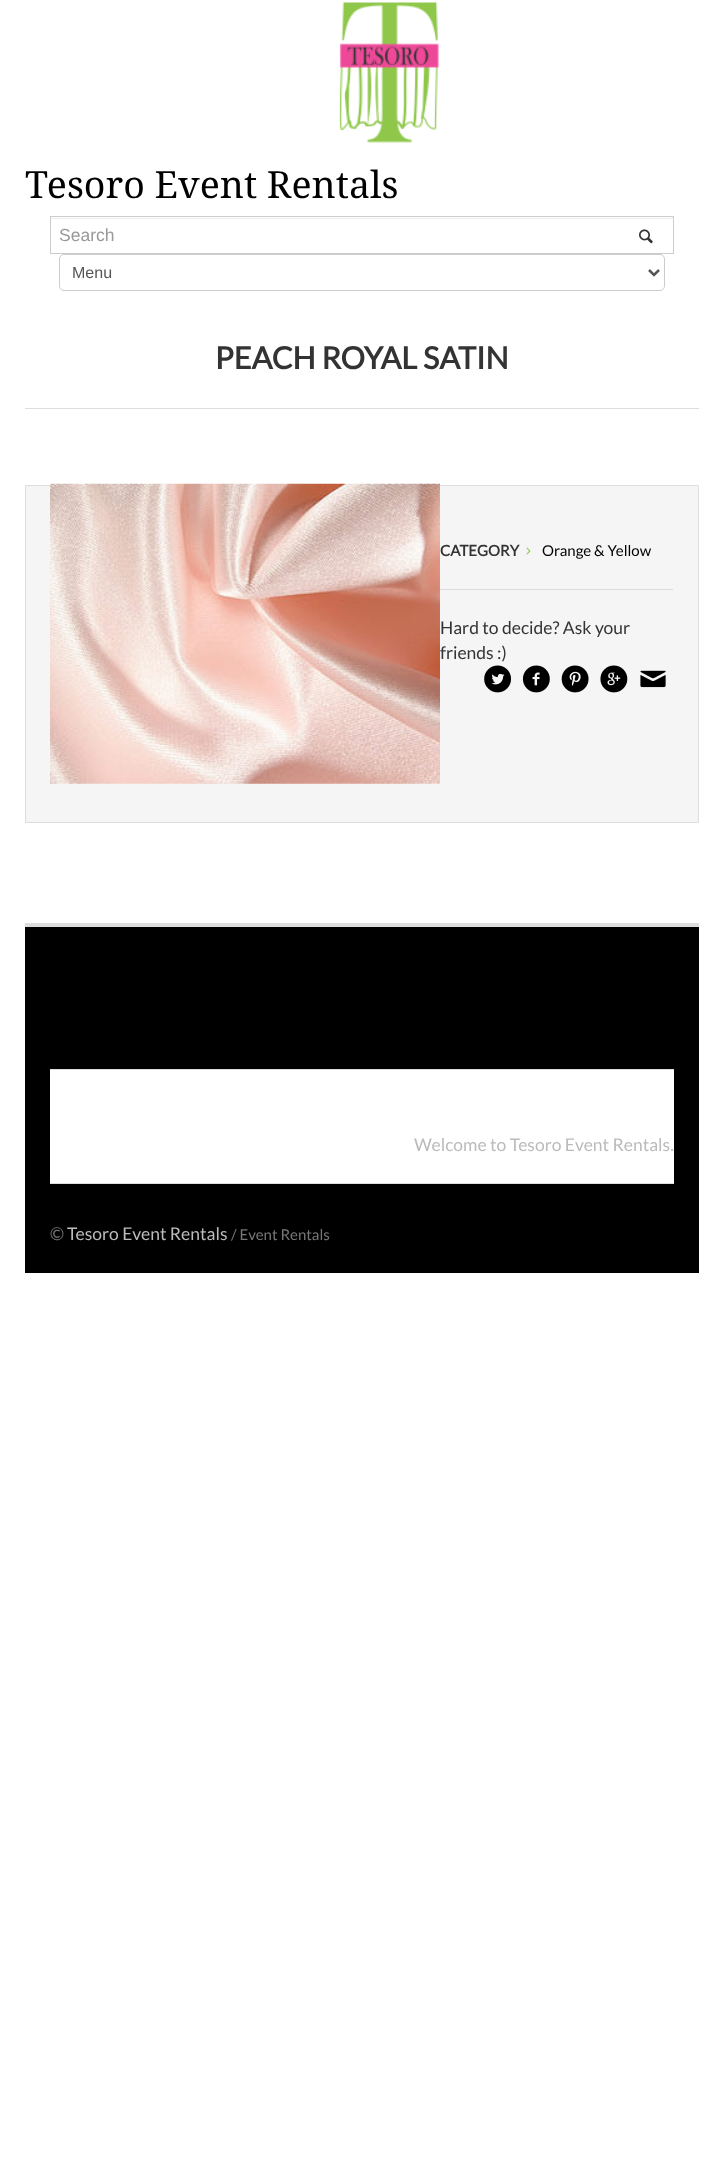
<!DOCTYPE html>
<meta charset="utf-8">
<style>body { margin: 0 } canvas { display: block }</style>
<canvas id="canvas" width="723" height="2179"></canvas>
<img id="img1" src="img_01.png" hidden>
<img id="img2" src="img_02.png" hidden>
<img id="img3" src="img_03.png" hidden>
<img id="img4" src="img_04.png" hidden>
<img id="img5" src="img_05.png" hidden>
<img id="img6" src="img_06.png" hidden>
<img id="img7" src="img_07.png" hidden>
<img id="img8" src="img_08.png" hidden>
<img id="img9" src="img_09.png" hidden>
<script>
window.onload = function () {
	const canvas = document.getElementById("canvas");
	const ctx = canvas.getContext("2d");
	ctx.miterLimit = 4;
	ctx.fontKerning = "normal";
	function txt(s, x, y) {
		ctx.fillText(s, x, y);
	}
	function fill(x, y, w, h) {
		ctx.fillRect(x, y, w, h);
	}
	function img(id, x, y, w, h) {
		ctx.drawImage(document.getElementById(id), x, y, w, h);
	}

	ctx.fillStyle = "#FFFFFF";
	fill(0, 0, 723, 2179);
	img("img1", 339, 2, 100, 141);
	ctx.fillStyle = "#ECECEC";
	fill(51, 218, 622, 1);
	ctx.strokeStyle = "#CCCCCC";
	ctx.strokeRect(50.5, 216.5, 623, 37);
	ctx.fillStyle = "rgba(255, 255, 255, 0.2)";
	fill(673, 219, 1, 1);
	img("img2", 639, 229, 14, 15);
	ctx.beginPath();
	ctx.roundRect(59.5, 254.5, 605, 36, 4.5);
	ctx.stroke();
	ctx.beginPath();
	ctx.moveTo(649, 270);
	ctx.lineTo(654, 275);
	ctx.lineTo(659, 270);
	ctx.strokeStyle = "#555555";
	ctx.lineWidth = 2.5;
	ctx.stroke();
	ctx.fillStyle = "#DDDDDD";
	fill(25, 408, 674, 1);
	ctx.fillStyle = "#F5F5F5";
	ctx.beginPath();
	ctx.rect(25.5, 485.5, 673, 337);
	ctx.fill();
	ctx.strokeStyle = "#DDDDDD";
	ctx.lineWidth = 1;
	ctx.stroke();
	img("img3", 50, 483, 390, 301);
	img("img4", 526, 547, 5, 8);
	ctx.fillStyle = "#DDDDDD";
	fill(440, 589, 233, 1);
	img("img5", 484, 665, 27, 28);
	img("img6", 522, 665, 28, 28);
	img("img7", 561, 665, 28, 28);
	img("img8", 600, 665, 28, 28);
	img("img9", 640, 670, 26, 18);
	ctx.fillStyle = "#000000";
	fill(25, 927, 674, 346);
	ctx.fillStyle = "#DDDDDD";
	fill(25, 923, 674, 4);
	ctx.fillStyle = "#FFFFFF";
	fill(50, 1070, 624, 113);
	ctx.fillStyle = "#DDDDDD";
	fill(50, 1069, 624, 1);
	fill(50, 1183, 624, 1);
	ctx.font = "37.5px Droid Serif";
	ctx.fillStyle = "#000000";
	txt("Tesoro Event Rentals", 25, 198);
	ctx.font = "17.5px Liberation Sans";
	ctx.fillStyle = "#999999";
	txt("Search", 59, 241);
	ctx.font = "16px Liberation Sans";
	ctx.fillStyle = "#555555";
	txt("Menu", 72, 278);
	ctx.font = "bold 30.6px Lato";
	ctx.fillStyle = "#333333";
	txt("PEACH ROYAL SATIN", 215, 369);
	ctx.font = "bold 15px Lato";
	txt("CATEGORY", 440, 556);
	ctx.font = "15px Lato";
	ctx.fillStyle = "#000000";
	txt("Orange & Yellow", 542, 556);
	ctx.font = "17.5px Lato";
	ctx.fillStyle = "#333333";
	txt("Hard to decide? Ask your", 440, 634);
	txt("friends :)", 440, 659);
	ctx.fillStyle = "#BBBBBB";
	txt("Welcome to Tesoro Event Rentals.", 414, 1151);
	ctx.fillStyle = "#777777";
	txt("©", 50, 1240);
	ctx.fillStyle = "#BBBBBB";
	txt("Tesoro Event Rentals", 67, 1240);
	ctx.font = "15px Lato";
	ctx.fillStyle = "#777777";
	txt("/ Event Rentals", 231, 1240);
};
</script>
